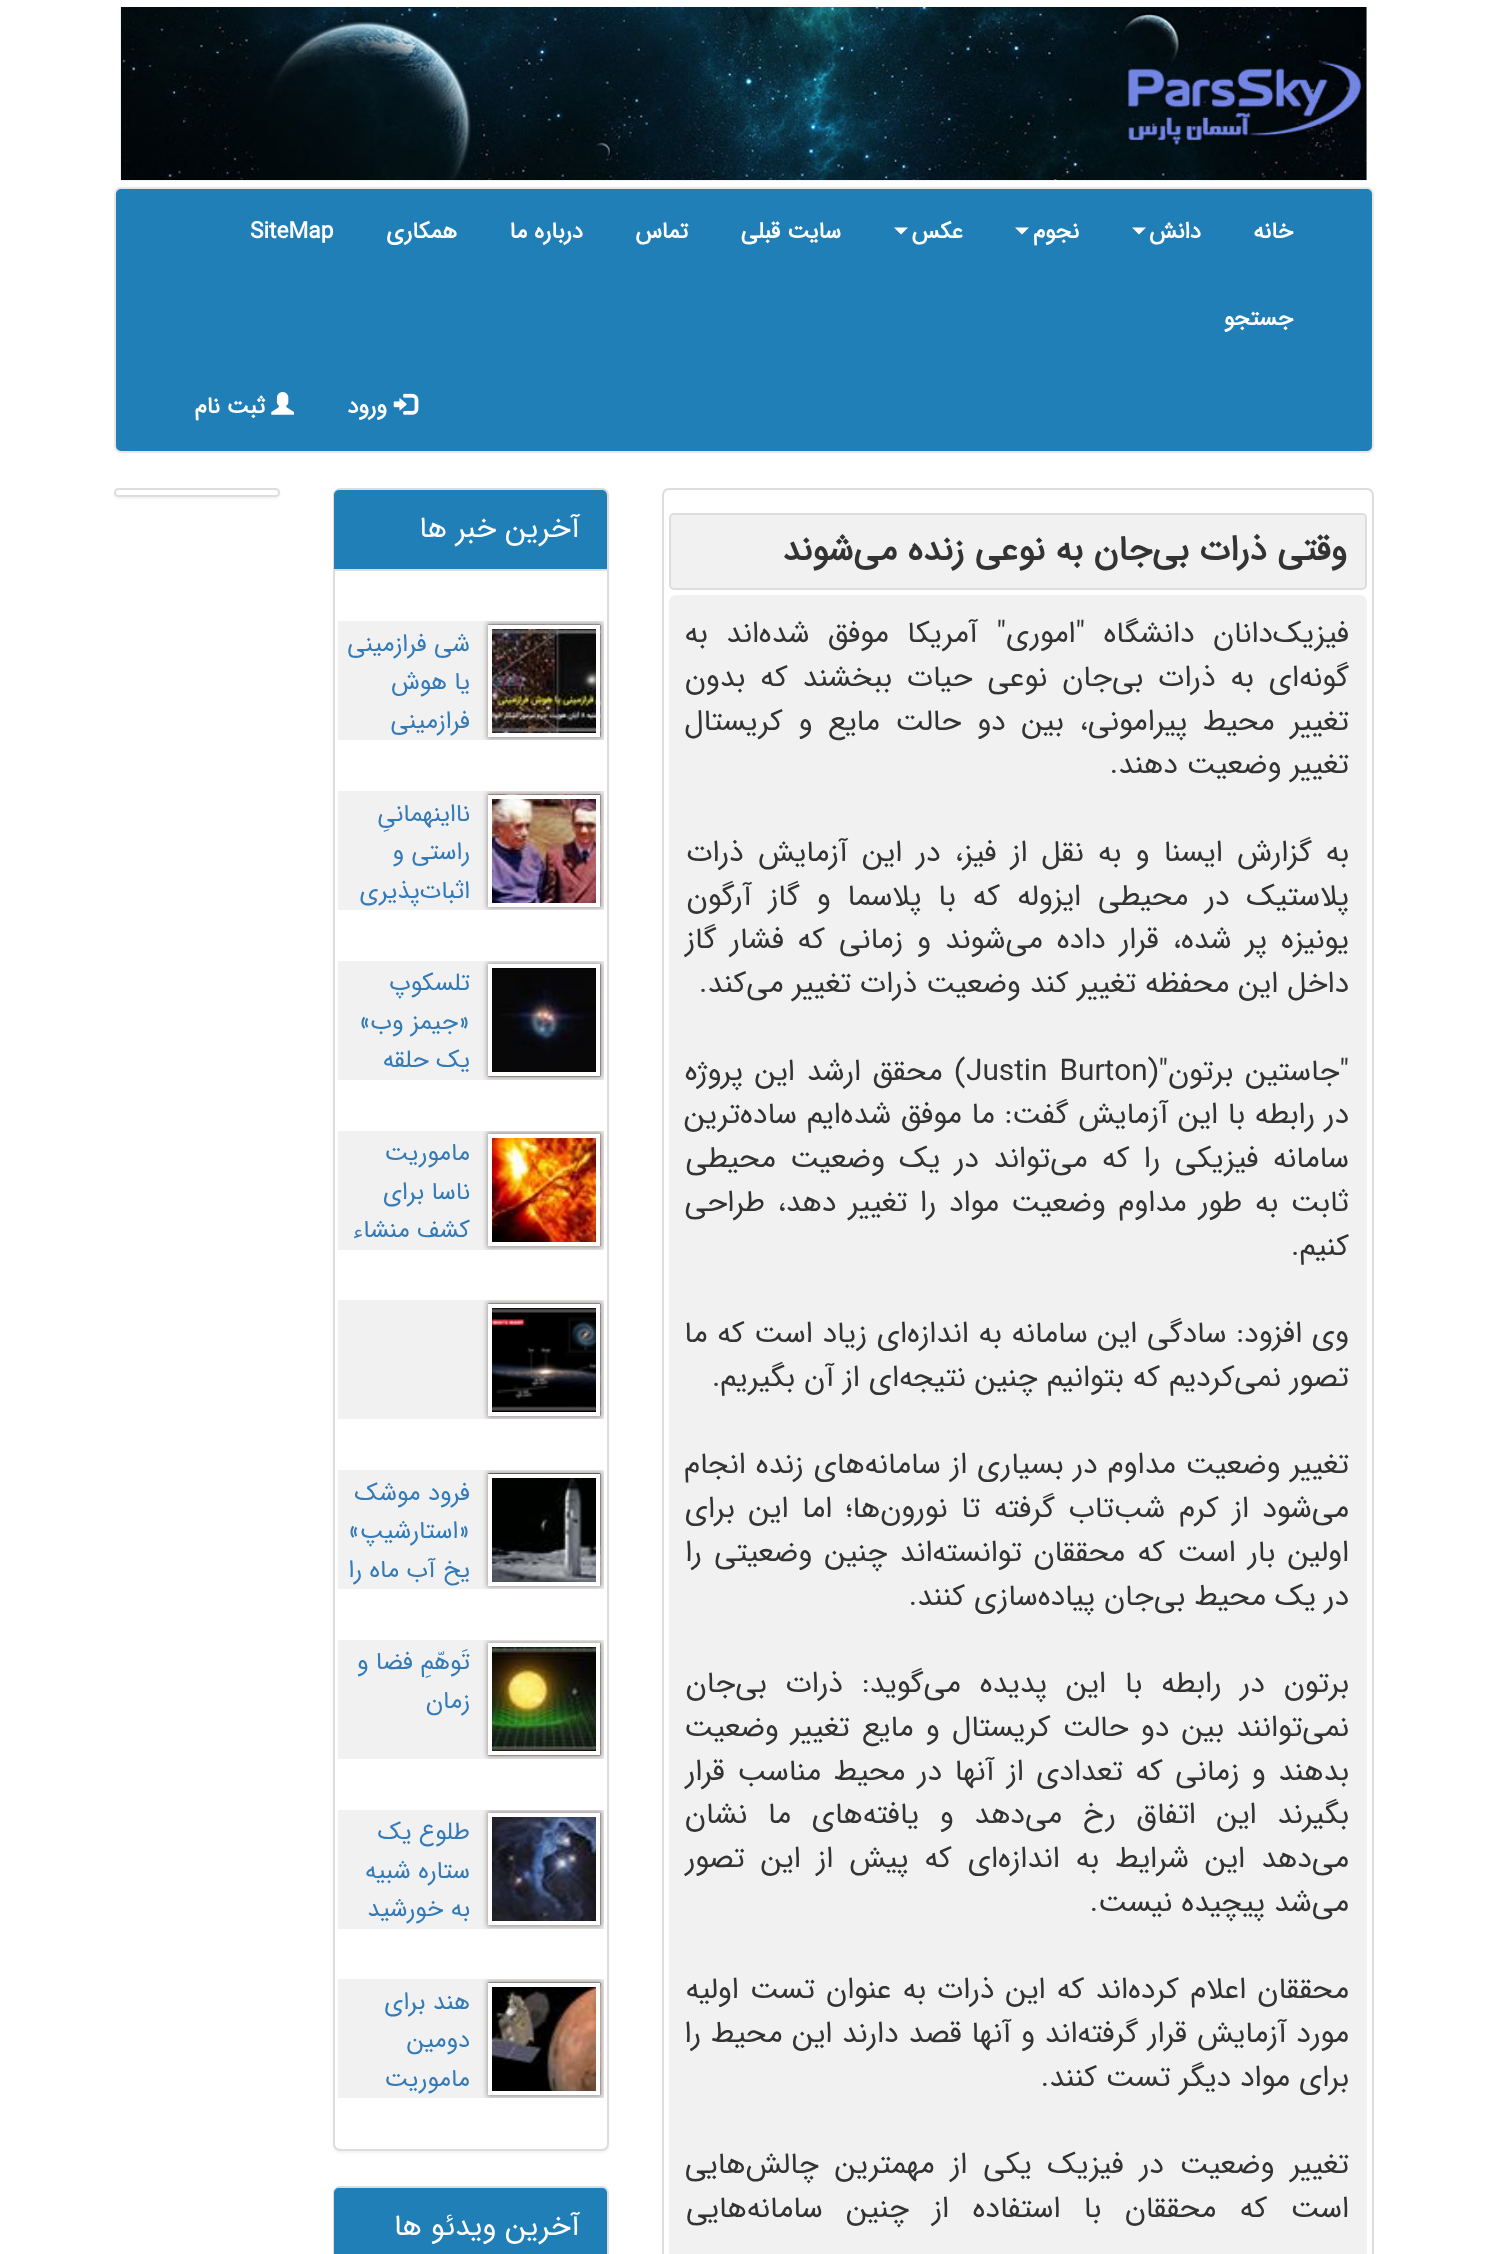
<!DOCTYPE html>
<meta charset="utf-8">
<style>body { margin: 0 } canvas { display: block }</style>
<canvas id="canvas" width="1487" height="2254"></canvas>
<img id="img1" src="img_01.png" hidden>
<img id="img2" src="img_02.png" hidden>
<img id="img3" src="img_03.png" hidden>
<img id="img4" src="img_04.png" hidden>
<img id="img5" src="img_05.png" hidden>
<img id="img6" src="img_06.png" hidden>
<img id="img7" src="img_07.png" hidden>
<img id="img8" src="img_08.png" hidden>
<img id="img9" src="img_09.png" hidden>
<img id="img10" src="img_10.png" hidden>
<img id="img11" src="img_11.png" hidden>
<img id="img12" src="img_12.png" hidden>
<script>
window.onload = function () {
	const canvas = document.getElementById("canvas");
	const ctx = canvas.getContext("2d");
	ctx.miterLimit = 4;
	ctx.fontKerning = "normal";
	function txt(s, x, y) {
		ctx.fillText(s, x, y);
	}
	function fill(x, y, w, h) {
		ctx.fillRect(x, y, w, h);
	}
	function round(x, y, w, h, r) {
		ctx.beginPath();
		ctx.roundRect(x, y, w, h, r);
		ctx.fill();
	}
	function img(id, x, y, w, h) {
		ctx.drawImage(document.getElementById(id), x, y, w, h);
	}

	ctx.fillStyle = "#FFFFFF";
	fill(0, 0, 1487, 2254);
	img("img1", 120, 7, 1247, 174);
	ctx.fillStyle = "#207FB7";
	ctx.beginPath();
	ctx.roundRect(115, 188, 1258, 264, 6);
	ctx.fill();
	ctx.strokeStyle = "#E7E7E7";
	ctx.lineWidth = 2;
	ctx.stroke();
	ctx.fillStyle = "#FFFFFF";
	ctx.beginPath();
	ctx.moveTo(1132, 227.5);
	ctx.lineTo(1146, 227.5);
	ctx.lineTo(1139, 234.5);
	ctx.closePath();
	ctx.fill();
	ctx.beginPath();
	ctx.moveTo(1015, 227.5);
	ctx.lineTo(1029, 227.5);
	ctx.lineTo(1022, 234.5);
	ctx.closePath();
	ctx.fill();
	ctx.beginPath();
	ctx.moveTo(894, 227.5);
	ctx.lineTo(908, 227.5);
	ctx.lineTo(901, 234.5);
	ctx.closePath();
	ctx.fill();
	img("img2", 393, 393, 26, 22);
	img("img3", 271, 392, 23, 23);
	ctx.fillStyle = "rgba(0, 0, 0, 0.05)";
	ctx.filter = "blur(1px)";
	ctx.beginPath();
	ctx.roundRect(114, 490, 166, 9, 4.5);
	ctx.fill();
	ctx.filter = "none";
	ctx.fillStyle = "#FFFFFF";
	ctx.beginPath();
	ctx.roundRect(115, 489, 164, 7, 3.5);
	ctx.fill();
	ctx.strokeStyle = "#DDDDDD";
	ctx.stroke();
	ctx.beginPath();
	ctx.roundRect(663, 489, 710, 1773, 6);
	ctx.stroke();
	ctx.fillStyle = "#F1F1F1";
	ctx.beginPath();
	ctx.roundRect(670, 514, 696, 75, 4);
	ctx.fill();
	ctx.stroke();
	round(669, 595, 698, 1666, 7);
	ctx.fillStyle = "rgba(0, 0, 0, 0.05)";
	ctx.filter = "blur(1px)";
	ctx.beginPath();
	ctx.roundRect(333, 490, 276, 1663, 7);
	ctx.fill();
	ctx.filter = "none";
	ctx.fillStyle = "#FFFFFF";
	ctx.beginPath();
	ctx.roundRect(334, 489, 274, 1661, 6);
	ctx.fill();
	ctx.stroke();
	ctx.fillStyle = "#207FB7";
	ctx.beginPath();
	ctx.roundRect(334, 490, 273, 81, [5, 5, 0, 0]);
	ctx.fill();
	ctx.fillStyle = "#DDDDDD";
	fill(334, 569, 273, 2);
	ctx.fillStyle = "#F1F1F1";
	fill(338, 621, 266, 119);
	ctx.save();
	ctx.beginPath();
	ctx.rect(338, 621, 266, 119);
	ctx.clip();
	ctx.fillStyle = "#A59B9B";
	ctx.filter = "blur(2.5px)";
	ctx.beginPath();
	ctx.rect(487, 623, 115, 116);
	ctx.fill();
	ctx.filter = "none";
	ctx.restore();
	img("img4", 488, 624, 113, 113);
	ctx.strokeStyle = "#FFFFFF";
	ctx.lineWidth = 4;
	ctx.strokeRect(490, 627, 108, 108);
	fill(338, 791, 266, 119);
	ctx.save();
	ctx.beginPath();
	ctx.rect(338, 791, 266, 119);
	ctx.clip();
	ctx.fillStyle = "#A59B9B";
	ctx.filter = "blur(2.5px)";
	ctx.beginPath();
	ctx.rect(487, 793, 115, 115);
	ctx.fill();
	ctx.filter = "none";
	ctx.restore();
	img("img5", 488, 794, 113, 113);
	ctx.strokeRect(490, 797, 108, 108);
	fill(338, 961, 266, 119);
	ctx.save();
	ctx.beginPath();
	ctx.rect(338, 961, 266, 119);
	ctx.clip();
	ctx.fillStyle = "#A59B9B";
	ctx.filter = "blur(2.5px)";
	ctx.beginPath();
	ctx.rect(487, 963, 115, 115);
	ctx.fill();
	ctx.filter = "none";
	ctx.restore();
	img("img6", 488, 964, 113, 113);
	ctx.strokeRect(490, 966, 108, 108);
	fill(338, 1131, 266, 119);
	ctx.save();
	ctx.beginPath();
	ctx.rect(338, 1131, 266, 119);
	ctx.clip();
	ctx.fillStyle = "#A59B9B";
	ctx.filter = "blur(2.5px)";
	ctx.beginPath();
	ctx.rect(487, 1132, 115, 116);
	ctx.fill();
	ctx.filter = "none";
	ctx.restore();
	img("img7", 492, 1134, 109, 112);
	ctx.strokeRect(490, 1136, 108, 108);
	fill(338, 1300, 266, 119);
	ctx.save();
	ctx.beginPath();
	ctx.rect(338, 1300, 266, 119);
	ctx.clip();
	ctx.fillStyle = "#A59B9B";
	ctx.filter = "blur(2.5px)";
	ctx.beginPath();
	ctx.rect(487, 1302, 115, 116);
	ctx.fill();
	ctx.filter = "none";
	ctx.restore();
	img("img8", 488, 1303, 113, 113);
	ctx.strokeRect(490, 1306, 108, 108);
	fill(338, 1470, 266, 119);
	ctx.save();
	ctx.beginPath();
	ctx.rect(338, 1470, 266, 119);
	ctx.clip();
	ctx.fillStyle = "#A59B9B";
	ctx.filter = "blur(2.5px)";
	ctx.beginPath();
	ctx.rect(487, 1472, 115, 115);
	ctx.fill();
	ctx.filter = "none";
	ctx.restore();
	img("img9", 488, 1473, 113, 113);
	ctx.strokeRect(490, 1476, 108, 108);
	fill(338, 1640, 266, 119);
	ctx.save();
	ctx.beginPath();
	ctx.rect(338, 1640, 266, 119);
	ctx.clip();
	ctx.fillStyle = "#A59B9B";
	ctx.filter = "blur(2.5px)";
	ctx.beginPath();
	ctx.rect(487, 1642, 115, 115);
	ctx.fill();
	ctx.filter = "none";
	ctx.restore();
	img("img10", 488, 1643, 113, 113);
	ctx.strokeRect(490, 1645, 108, 108);
	fill(338, 1810, 266, 119);
	ctx.save();
	ctx.beginPath();
	ctx.rect(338, 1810, 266, 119);
	ctx.clip();
	ctx.fillStyle = "#A59B9B";
	ctx.filter = "blur(2.5px)";
	ctx.beginPath();
	ctx.rect(487, 1811, 115, 116);
	ctx.fill();
	ctx.filter = "none";
	ctx.restore();
	img("img11", 492, 1813, 109, 112);
	ctx.strokeRect(490, 1815, 108, 108);
	fill(338, 1979, 266, 119);
	ctx.save();
	ctx.beginPath();
	ctx.rect(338, 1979, 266, 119);
	ctx.clip();
	ctx.fillStyle = "#A59B9B";
	ctx.filter = "blur(2.5px)";
	ctx.beginPath();
	ctx.rect(487, 1981, 115, 116);
	ctx.fill();
	ctx.filter = "none";
	ctx.restore();
	img("img12", 488, 1982, 113, 113);
	ctx.strokeRect(490, 1985, 108, 108);
	ctx.beginPath();
	ctx.roundRect(334, 2187, 274, 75, 6);
	ctx.strokeStyle = "#DDDDDD";
	ctx.lineWidth = 2;
	ctx.stroke();
	ctx.fillStyle = "#207FB7";
	ctx.beginPath();
	ctx.moveTo(339, 2188);
	ctx.lineTo(602, 2188);
	ctx.bezierCurveTo(605, 2188, 607, 2190, 607, 2193);
	ctx.lineTo(607, 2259);
	ctx.lineTo(334, 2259);
	ctx.lineTo(334, 2193);
	ctx.bezierCurveTo(334, 2190, 336, 2188, 339, 2188);
	ctx.closePath();
	ctx.fill();
	ctx.direction = "rtl";
	ctx.font = "bold 22.75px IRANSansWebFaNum";
	ctx.fillStyle = "#FFFFFF";
	txt("خانه", 1293, 238);
	txt("دانش", 1201, 238);
	txt("نجوم", 1079, 238);
	txt("عکس", 963, 238);
	txt("سایت قبلی", 841, 238);
	txt("تماس", 688, 238);
	txt("درباره ما", 583, 238);
	txt("همکاری", 457, 238);
	ctx.direction = "ltr";
	txt("SiteMap", 250, 238);
	ctx.direction = "rtl";
	txt("جستجو", 1293, 325);
	txt("ورود", 387, 413);
	txt("ثبت نام", 265, 413);
	ctx.font = "bold 35px IRANSansWebFaNum";
	ctx.fillStyle = "#333333";
	txt("وقتی ذرات بی‌جان به نوعی زنده می‌شوند", 1347, 560);
	ctx.wordSpacing = "9.5px";
	ctx.font = "29.75px IRANSansWebFaNum";
	txt("فیزیک‌دانان دانشگاه \"اموری\"", 1349, 642);
	txt("آمریکا موفق شده‌اند به", 978, 642);
	ctx.wordSpacing = "6px";
	txt("گونه‌ای به ذرات بی‌جان نوعی حیات ببخشند که بدون", 1349, 686);
	ctx.wordSpacing = "6.75px";
	txt("تغییر محیط پیرامونی، بین دو حالت مایع و کریستال", 1349, 730);
	ctx.wordSpacing = "0px";
	txt("تغییر وضعیت دهند.", 1349, 773);
	txt("به", 1349, 861);
	ctx.wordSpacing = "5.25px";
	txt("گزارش ایسنا و به نقل از فیز، در این آزمایش ذرات", 1312, 861);
	ctx.wordSpacing = "8px";
	txt("پلاستیک در محیطی ایزوله", 1349, 905);
	txt("که با پلاسما و گاز آرگون", 1000, 905);
	ctx.wordSpacing = "5px";
	txt("یونیزه پر شده، قرار داده می‌شوند و زمانی که", 1349, 948);
	txt("فشار گاز", 784, 948);
	ctx.wordSpacing = "0px";
	txt("داخل این محفظه تغییر کند وضعیت ذرات تغییر می‌کند.", 1349, 992);
	ctx.wordSpacing = "3px";
	txt("\"جاستین برتون\"(", 1349, 1080);
	ctx.direction = "ltr";
	txt("Justin Burton", 966, 1080);
	ctx.direction = "rtl";
	txt(") محقق", 966, 1080);
	txt("ارشد این پروژه", 861, 1080);
	ctx.wordSpacing = "0.75px";
	txt("در رابطه با این آزمایش گفت: ما موفق شده‌ایم ساده‌ترین", 1349, 1123);
	ctx.wordSpacing = "5.5px";
	txt("سامانه فیزیکی را که می‌تواند در یک وضعیت محیطی", 1349, 1167);
	ctx.wordSpacing = "3.5px";
	txt("ثابت به طور مداوم وضعیت", 1349, 1211);
	txt("مواد را تغییر دهد، طراحی", 999, 1211);
	ctx.wordSpacing = "0px";
	txt("کنیم.", 1349, 1255);
	ctx.wordSpacing = "0.75px";
	txt("وی افزود: سادگی این سامانه به اندازه‌ای زیاد است که ما", 1349, 1342);
	ctx.wordSpacing = "0px";
	txt("تصور نمی‌کردیم که بتوانیم چنین نتیجه‌ای از آن بگیریم.", 1349, 1386);
	ctx.wordSpacing = "1px";
	txt("تغییر وضعیت مداوم در بسیاری از سامانه‌های زنده انجام", 1349, 1473);
	ctx.wordSpacing = "0px";
	txt("می‌شود", 1349, 1517);
	ctx.wordSpacing = "4.75px";
	txt("از کرم شب‌تاب گرفته تا نورون‌ها؛ اما این برای", 1249, 1517);
	ctx.wordSpacing = "3.5px";
	txt("اولین بار است که محققان", 1349, 1561);
	txt("توانسته‌اند چنین وضعیتی را", 1022, 1561);
	ctx.wordSpacing = "0px";
	txt("در یک محیط بی‌جان پیاده‌سازی کنند.", 1349, 1605);
	ctx.wordSpacing = "10px";
	txt("برتون در رابطه با این پدیده می‌گوید: ذرات بی‌جان", 1349, 1692);
	ctx.wordSpacing = "0px";
	txt("نمی‌توانند", 1349, 1736);
	ctx.wordSpacing = "3.25px";
	txt("بین دو حالت کریستال و مایع تغییر وضعیت", 1224, 1736);
	ctx.wordSpacing = "3.5px";
	txt("بدهند و زمانی که تعدادی از آنها", 1349, 1780);
	txt("در محیط مناسب قرار", 942, 1780);
	ctx.wordSpacing = "11.75px";
	txt("بگیرند این اتفاق رخ می‌دهد و یافته‌های ما نشان", 1349, 1823);
	ctx.wordSpacing = "0px";
	txt("می‌دهد", 1349, 1867);
	ctx.wordSpacing = "7px";
	txt("این شرایط به اندازه‌ای که پیش از این تصور", 1245, 1867);
	ctx.wordSpacing = "0px";
	txt("می‌شد پیچیده نیست.", 1349, 1911);
	ctx.wordSpacing = "2.25px";
	txt("محققان اعلام کرده‌اند که این ذرات به عنوان تست اولیه", 1349, 1998);
	ctx.wordSpacing = "0px";
	txt("مورد", 1349, 2042);
	ctx.wordSpacing = "0.75px";
	txt("آزمایش قرار گرفته‌اند و آنها قصد دارند این محیط را", 1287, 2042);
	ctx.wordSpacing = "0px";
	txt("برای مواد دیگر تست", 1349, 2086);
	txt("کنند.", 1097, 2086);
	ctx.wordSpacing = "7px";
	txt("تغییر وضعیت در فیزیک یکی از مهمترین چالش‌هایی", 1349, 2173);
	ctx.wordSpacing = "14.5px";
	txt("است که محققان با استفاده از چنین سامانه‌هایی", 1349, 2217);
	ctx.wordSpacing = "0px";
	ctx.fillStyle = "#FFFFFF";
	txt("آخرین خبر ها", 580, 537);
	ctx.font = "24.5px IRANSansWebFaNum";
	ctx.fillStyle = "#337AB7";
	txt("شی فرازمینی", 470, 651);
	txt("یا هوش", 470, 689);
	txt("فرازمینی", 470, 728);
	txt("نااینهمانیِ", 470, 821);
	txt("راستی و", 470, 859);
	txt("اثبات‌پذیری", 470, 898);
	txt("تلسکوپ", 470, 990);
	txt("«جیمز وب»", 470, 1029);
	txt("یک حلقه", 470, 1067);
	txt("ماموریت", 470, 1160);
	txt("ناسا برای", 470, 1199);
	txt("کشف منشاء", 470, 1237);
	txt("فرود موشک", 470, 1500);
	txt("«استارشیپ»", 470, 1538);
	txt("یخ آب ماه را", 470, 1577);
	txt("تَوهّمِ فضا و", 470, 1669);
	txt("زمان", 470, 1708);
	txt("طلوع یک", 470, 1839);
	txt("ستاره شبیه", 470, 1878);
	txt("به خورشید", 470, 1916);
	txt("هند برای", 470, 2009);
	txt("دومین", 470, 2047);
	txt("ماموریت", 470, 2086);
	ctx.font = "29.75px IRANSansWebFaNum";
	ctx.fillStyle = "#FFFFFF";
	txt("آخرین ویدئو ها", 580, 2235);
};
</script>
